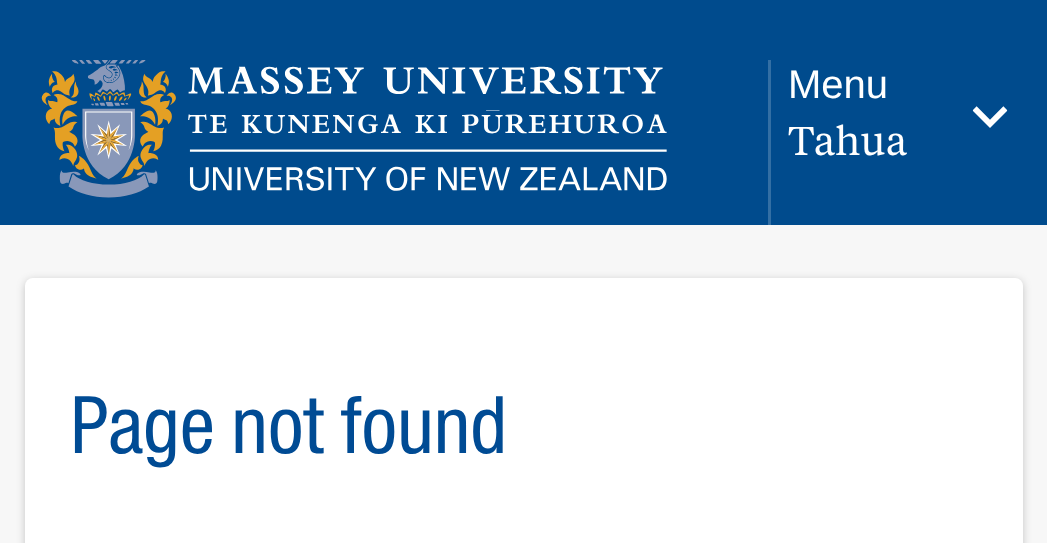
<!DOCTYPE html>
<meta charset="utf-8">
<style>body { margin: 0 } canvas { display: block }</style>
<canvas id="canvas" width="1047" height="543"></canvas>
<img id="img1" src="img_01.png" hidden>
<img id="img2" src="img_02.png" hidden>
<script>
window.onload = function () {
	const canvas = document.getElementById("canvas");
	const ctx = canvas.getContext("2d");
	ctx.miterLimit = 4;
	ctx.fontKerning = "normal";
	function txt(s, x, y) {
		ctx.fillText(s, x, y);
	}
	function fill(x, y, w, h) {
		ctx.fillRect(x, y, w, h);
	}
	function round(x, y, w, h, r) {
		ctx.beginPath();
		ctx.roundRect(x, y, w, h, r);
		ctx.fill();
	}
	function img(id, x, y, w, h) {
		ctx.drawImage(document.getElementById(id), x, y, w, h);
	}

	ctx.fillStyle = "#F7F7F7";
	fill(0, 0, 1047, 543);
	ctx.fillStyle = "#004B8D";
	fill(0, 0, 1047, 225);
	img("img1", 41, 60, 626, 138);
	ctx.fillStyle = "#336FA4";
	fill(768, 60, 3, 165);
	img("img2", 972, 106, 36, 22);
	ctx.fillStyle = "rgba(0, 0, 0, 0.2)";
	ctx.filter = "blur(4px)";
	ctx.beginPath();
	ctx.roundRect(25, 280, 998, 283, 8);
	ctx.fill();
	ctx.filter = "none";
	ctx.fillStyle = "#FFFFFF";
	round(25, 278, 998, 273, 8);
	ctx.font = "40px Liberation Sans";
	txt("Menu", 788, 98);
	ctx.font = "40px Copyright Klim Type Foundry";
	txt("Tahua", 788, 155);
	ctx.font = "85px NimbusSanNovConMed";
	ctx.fillStyle = "#004B94";
	txt("Page not found", 70, 453);
};
</script>
